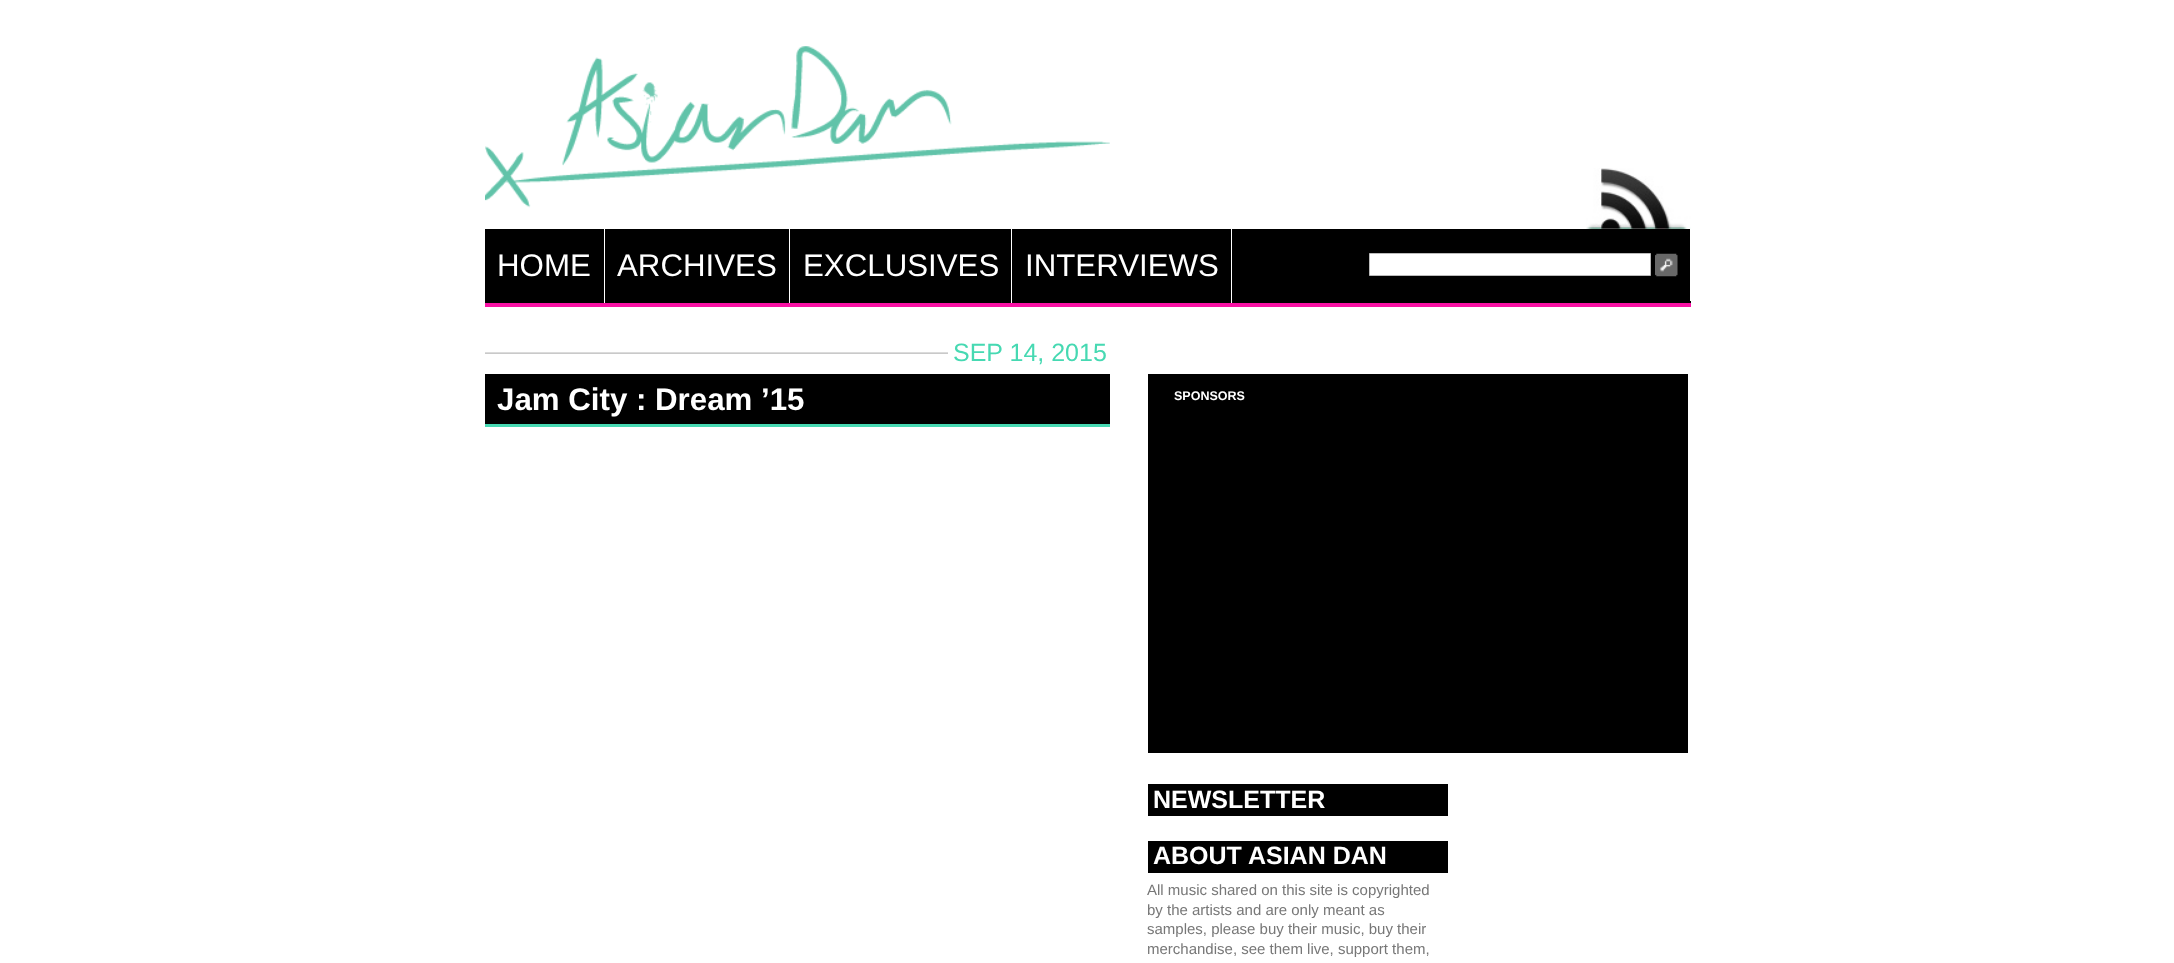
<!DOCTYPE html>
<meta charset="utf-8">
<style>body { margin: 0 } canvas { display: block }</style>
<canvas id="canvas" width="2174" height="963"></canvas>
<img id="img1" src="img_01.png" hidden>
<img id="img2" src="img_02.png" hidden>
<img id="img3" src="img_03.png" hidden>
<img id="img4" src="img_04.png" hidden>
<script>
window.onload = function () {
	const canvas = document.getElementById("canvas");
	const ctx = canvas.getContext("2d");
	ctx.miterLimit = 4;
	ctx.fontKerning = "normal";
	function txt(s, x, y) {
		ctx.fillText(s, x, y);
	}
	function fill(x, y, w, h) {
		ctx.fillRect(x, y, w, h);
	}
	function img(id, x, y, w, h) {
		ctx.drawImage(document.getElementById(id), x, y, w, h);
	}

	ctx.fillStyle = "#FFFFFF";
	fill(0, 0, 2174, 963);
	img("img1", 485, 46, 625, 162);
	img("img2", 1586, 168, 105, 61);
	ctx.fillStyle = "#000000";
	fill(485, 229, 1206, 74);
	ctx.fillStyle = "#F911A4";
	fill(485, 303, 1206, 4);
	ctx.fillStyle = "#FFFFFF";
	fill(604, 229, 1, 74);
	fill(789, 229, 1, 74);
	fill(1011, 229, 1, 74);
	fill(1231, 229, 1, 74);
	fill(1690, 229, 1, 72);
	ctx.beginPath();
	ctx.rect(1369.5, 253.5, 281, 22);
	ctx.fill();
	ctx.strokeStyle = "#BBBBBB";
	ctx.stroke();
	img("img3", 1655, 253, 23, 24);
	img("img4", 485, 352, 463, 2);
	ctx.fillStyle = "#000000";
	fill(485, 374, 625, 50);
	ctx.fillStyle = "#46D9B2";
	fill(485, 424, 625, 3);
	ctx.fillStyle = "#000000";
	fill(1148, 374, 540, 379);
	fill(1148, 784, 300, 32);
	fill(1148, 841, 300, 32);
	ctx.font = "31.25px Liberation Sans";
	ctx.fillStyle = "#FFFFFF";
	txt("HOME", 497, 276);
	txt("ARCHIVES", 617, 276);
	txt("EXCLUSIVES", 803, 276);
	txt("INTERVIEWS", 1025, 276);
	ctx.font = "25px Liberation Sans";
	ctx.fillStyle = "#46D9B2";
	txt("SEP 14, 2015", 953, 361);
	ctx.font = "bold 31.25px Liberation Sans";
	ctx.fillStyle = "#FFFFFF";
	txt("Jam City : Dream ’15", 497, 410);
	ctx.font = "bold 12.5px Liberation Sans";
	txt("SPONSORS", 1174, 400);
	ctx.font = "bold 25px Liberation Sans";
	txt("NEWSLETTER", 1153, 808);
	txt("ABOUT ASIAN DAN", 1153, 864);
	ctx.font = "15px Liberation Sans";
	ctx.fillStyle = "#777777";
	txt("All music shared on this site is copyrighted", 1147, 895);
	txt("by the artists and are only meant as", 1147, 915);
	txt("samples, please buy their music, buy their", 1147, 934);
	txt("merchandise, see them live, support them,", 1147, 954);
};
</script>
